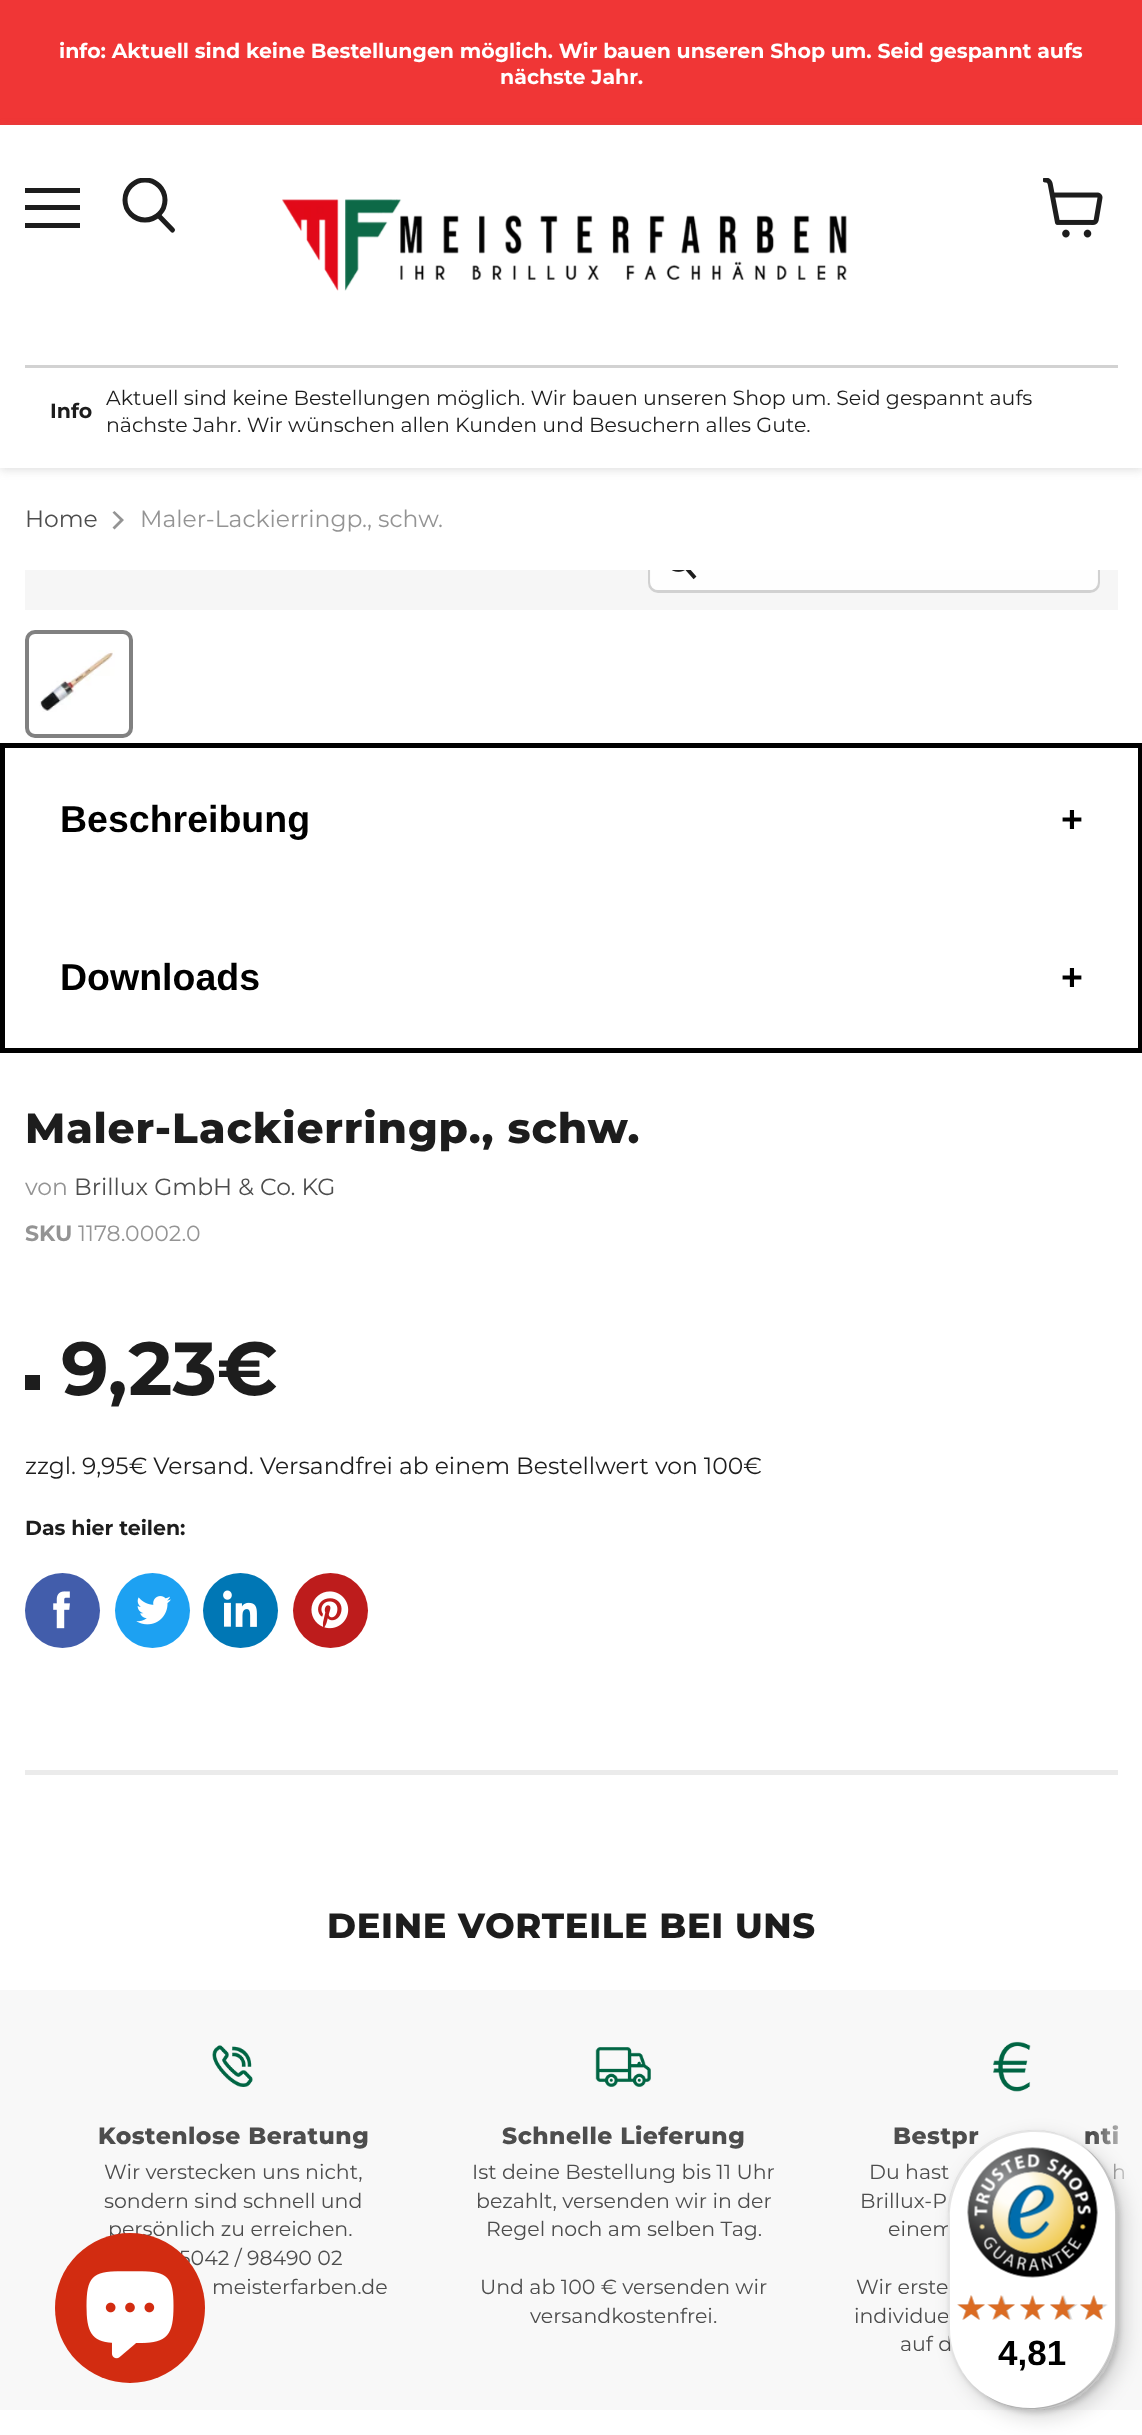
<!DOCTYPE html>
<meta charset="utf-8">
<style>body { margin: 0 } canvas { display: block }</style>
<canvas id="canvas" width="1142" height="2435"></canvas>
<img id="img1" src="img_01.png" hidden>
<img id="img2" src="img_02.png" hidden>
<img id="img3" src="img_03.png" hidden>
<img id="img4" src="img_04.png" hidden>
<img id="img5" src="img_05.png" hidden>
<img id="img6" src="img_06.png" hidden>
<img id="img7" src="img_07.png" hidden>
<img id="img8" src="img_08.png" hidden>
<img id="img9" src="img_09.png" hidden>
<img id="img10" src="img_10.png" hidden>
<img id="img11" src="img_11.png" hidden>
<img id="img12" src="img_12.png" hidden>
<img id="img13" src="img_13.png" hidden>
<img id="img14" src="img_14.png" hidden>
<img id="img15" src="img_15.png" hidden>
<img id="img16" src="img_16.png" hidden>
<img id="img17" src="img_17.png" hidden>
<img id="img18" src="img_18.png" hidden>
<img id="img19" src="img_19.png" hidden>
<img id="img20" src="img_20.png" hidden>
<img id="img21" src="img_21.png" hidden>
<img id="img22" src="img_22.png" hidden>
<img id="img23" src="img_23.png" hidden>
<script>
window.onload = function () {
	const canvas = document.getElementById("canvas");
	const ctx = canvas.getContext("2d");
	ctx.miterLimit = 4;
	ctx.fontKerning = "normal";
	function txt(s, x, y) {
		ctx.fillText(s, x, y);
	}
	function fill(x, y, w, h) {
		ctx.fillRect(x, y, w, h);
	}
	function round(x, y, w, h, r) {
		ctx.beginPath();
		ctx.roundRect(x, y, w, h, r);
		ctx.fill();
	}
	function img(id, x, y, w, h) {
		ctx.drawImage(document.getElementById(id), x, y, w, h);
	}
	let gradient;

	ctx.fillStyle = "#FFFFFF";
	fill(0, 0, 1142, 2435);
	ctx.fillStyle = "#F03636";
	fill(0, 0, 1142, 125);
	ctx.fillStyle = "rgba(128, 128, 128, 0.25)";
	ctx.filter = "blur(5px)";
	ctx.beginPath();
	ctx.rect(0, 128, 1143, 342);
	ctx.fill();
	ctx.filter = "none";
	ctx.fillStyle = "#FFFFFF";
	fill(0, 125, 1142, 343);
	ctx.fillStyle = "#1D1D1D";
	fill(25, 188, 55, 5);
	fill(25, 205, 55, 5);
	fill(25, 223, 55, 5);
	ctx.beginPath();
	ctx.moveTo(172.5, 230);
	ctx.lineTo(159, 216);
	ctx.strokeStyle = "#1D1D1D";
	ctx.lineWidth = 5;
	ctx.lineCap = "round";
	ctx.stroke();
	ctx.save();
	ctx.beginPath();
	ctx.rect(120, 178, 58, 60);
	ctx.clip();
	ctx.beginPath();
	ctx.arc(145, 200, 20, 0, Math.PI * 2);
	ctx.stroke();
	ctx.restore();
	img("img1", 1043, 178, 60, 60);
	img("img2", 282, 199, 565, 92);
	ctx.fillStyle = "#D2D2D2";
	fill(25, 365, 1093, 3);
	ctx.fillStyle = "#949494";
	ctx.beginPath();
	ctx.moveTo(112.5, 527.5);
	ctx.lineTo(114.5, 529.5);
	ctx.lineTo(124, 520);
	ctx.lineTo(114.5, 511);
	ctx.lineTo(112.5, 512.5);
	ctx.lineTo(120, 520);
	ctx.closePath();
	ctx.fill("evenodd");
	ctx.fillStyle = "#F6F6F6";
	fill(25, 570, 1093, 40);
	ctx.save();
	ctx.beginPath();
	ctx.rect(25, 570, 1093, 40);
	ctx.clip();
	ctx.beginPath();
	ctx.roundRect(649.5, 534.5, 449, 57, 8.5);
	ctx.strokeStyle = "#D1D1D1";
	ctx.lineWidth = 3;
	ctx.stroke();
	ctx.restore();
	ctx.fillStyle = "rgba(255, 255, 255, 0.9)";
	ctx.beginPath();
	ctx.roundRect(650, 570, 448, 20, [0, 0, 8, 8]);
	ctx.fill();
	img("img3", 671, 570, 26, 10);
	ctx.beginPath();
	ctx.roundRect(27, 632, 104, 104, 8);
	ctx.strokeStyle = "#818181";
	ctx.lineWidth = 4;
	ctx.stroke();
	img("img4", 39, 650, 76, 62);
	ctx.strokeStyle = "#000000";
	ctx.lineWidth = 5;
	ctx.strokeRect(2.5, 745.5, 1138, 305);
	ctx.fillStyle = "#1D1D1D";
	fill(25, 1375, 15, 15);
	ctx.fillStyle = "#425DAB";
	ctx.beginPath();
	ctx.arc(62.5, 1610.5, 37.5, 0, Math.PI * 2);
	ctx.fill();
	img("img5", 53, 1591, 17, 38);
	ctx.fillStyle = "#1DA1F2";
	ctx.beginPath();
	ctx.arc(152.5, 1610.5, 37.5, 0, Math.PI * 2);
	ctx.fill();
	img("img6", 136, 1596, 35, 29);
	ctx.fillStyle = "#0077B5";
	ctx.beginPath();
	ctx.arc(240.5, 1610.5, 37.5, 0, Math.PI * 2);
	ctx.fill();
	img("img7", 223, 1590, 34, 37);
	ctx.fillStyle = "#BD1C1C";
	ctx.beginPath();
	ctx.arc(330.5, 1610.5, 37.5, 0, Math.PI * 2);
	ctx.fill();
	img("img8", 311, 1591, 38, 38);
	ctx.fillStyle = "#EBEBEB";
	fill(25, 1770, 1093, 5);
	ctx.fillStyle = "#F8F8F8";
	fill(0, 1990, 1138, 420);
	img("img9", 212, 2045, 41, 42);
	img("img10", 595, 2047, 56, 40);
	img("img11", 993, 2041, 38, 51);
	ctx.wordSpacing = "-0.1px";
	ctx.font = "bold 20.5px Montserrat";
	ctx.fillStyle = "#FFFFFF";
	txt("info: Aktuell sind keine Bestellungen möglich. Wir bauen unseren Shop um. Seid gespannt aufs", 59, 58);
	ctx.wordSpacing = "0px";
	txt("nächste Jahr.", 500, 84);
	ctx.fillStyle = "#1D1D1D";
	txt("Info", 50, 418);
	ctx.wordSpacing = "-0.1px";
	ctx.font = "20.5px Montserrat";
	txt("Aktuell sind keine Bestellungen möglich. Wir bauen unseren Shop um. Seid gespannt aufs", 106, 405);
	txt("nächste Jahr. Wir wünschen allen Kunden und Besuchern alles Gute.", 106, 432);
	ctx.wordSpacing = "0px";
	ctx.font = "23.45px Montserrat";
	ctx.fillStyle = "#4D4D4D";
	txt("Home", 25, 527);
	ctx.fillStyle = "#949494";
	txt("Maler-Lackierringp., schw.", 140, 527);
	ctx.font = "bold 37.5px Liberation Sans";
	ctx.fillStyle = "#000000";
	txt("Beschreibung", 60, 832);
	txt("+", 1061, 832);
	txt("Downloads", 60, 990);
	txt("+", 1061, 990);
	ctx.letterSpacing = "0.85px";
	ctx.font = "800 42.25px Montserrat";
	ctx.fillStyle = "#1D1D1D";
	txt("Maler-Lackierringp., schw.", 25, 1143);
	ctx.letterSpacing = "0px";
	ctx.font = "23.45px Montserrat";
	ctx.fillStyle = "#949494";
	txt("von", 25, 1195);
	ctx.fillStyle = "#4D4D4D";
	txt("Brillux GmbH & Co. KG", 74, 1195);
	ctx.font = "bold 22px Montserrat";
	ctx.fillStyle = "#949494";
	txt("SKU", 25, 1241);
	ctx.font = "22px Montserrat";
	txt("1178.0002.0", 78, 1241);
	ctx.font = "bold 75px Montserrat";
	ctx.fillStyle = "#1D1D1D";
	txt("9,23€", 61, 1395);
	ctx.wordSpacing = "-0.1px";
	ctx.font = "23.45px Montserrat";
	txt("zzgl. 9,95€ Versand. Versandfrei ab einem Bestellwert von 100€", 25, 1474);
	ctx.wordSpacing = "0px";
	ctx.font = "bold 20.5px Montserrat";
	txt("Das hier teilen:", 25, 1535);
	ctx.letterSpacing = "0.7px";
	ctx.font = "800 35.2px Montserrat";
	txt("DEINE VORTEILE BEI UNS", 327, 1938);
	ctx.letterSpacing = "0.5px";
	ctx.font = "800 23.45px Montserrat";
	ctx.fillStyle = "#4D4D4D";
	txt("Kostenlose Beratung", 98, 2144);
	ctx.letterSpacing = "0px";
	ctx.font = "20.5px Montserrat";
	txt("Wir verstecken uns nicht,", 104, 2179);
	txt("sondern sind schnell und", 104, 2208);
	txt("persönlich zu erreichen.", 108, 2236);
	txt("5042 / 98490 02", 179, 2265);
	txt("meisterfarben.de", 212, 2294);
	ctx.letterSpacing = "0.5px";
	ctx.font = "800 23.45px Montserrat";
	txt("Schnelle Lieferung", 502, 2144);
	ctx.letterSpacing = "0px";
	ctx.font = "20.5px Montserrat";
	txt("Ist deine Bestellung bis 11 Uhr", 472, 2179);
	txt("bezahlt, versenden wir in der", 476, 2208);
	txt("Regel noch am selben Tag.", 486, 2236);
	txt("Und ab 100 € versenden wir", 480, 2294);
	txt("versandkostenfrei.", 530, 2323);
	ctx.letterSpacing = "0.5px";
	ctx.font = "800 23.45px Montserrat";
	txt("Bestpr", 893, 2144);
	txt("nti", 1084, 2144);
	ctx.letterSpacing = "0px";
	ctx.font = "20.5px Montserrat";
	txt("Du hast", 869, 2179);
	txt("h", 1112, 2179);
	gradient = ctx.createLinearGradient(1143, 2200, 1093, 2200);
	gradient.addColorStop(0.1, "#F8F8F8");
	gradient.addColorStop(1, "rgba(248, 248, 248, 0)");
	ctx.fillStyle = gradient;
	fill(1094, 1990, 48, 420);
	ctx.fillStyle = "#4D4D4D";
	txt("Brillux-P", 860, 2208);
	txt("einem", 888, 2236);
	txt("Wir erste", 856, 2294);
	txt("individue", 854, 2323);
	txt("auf d", 900, 2351);
	ctx.fillStyle = "#D22C11";
	ctx.beginPath();
	ctx.arc(130, 2308, 75, 0, Math.PI * 2);
	ctx.fill();
	img("img12", 86, 2271, 88, 88);
	ctx.fillStyle = "rgba(0, 0, 0, 0.15)";
	ctx.filter = "blur(10px)";
	ctx.beginPath();
	ctx.roundRect(955, 2138, 170, 280, 85);
	ctx.fill();
	ctx.filter = "none";
	ctx.filter = "blur(2.5px)";
	ctx.beginPath();
	ctx.roundRect(950, 2133, 170, 280, 85);
	ctx.fill();
	ctx.filter = "none";
	ctx.fillStyle = "#FFFFFF";
	round(948, 2130, 170, 280, 85);
	ctx.fillStyle = "rgba(0, 0, 0, 0.1)";
	ctx.beginPath();
	ctx.moveTo(1035, 2132);
	ctx.bezierCurveTo(1062, 2132, 1085, 2145, 1101, 2164);
	ctx.bezierCurveTo(1085, 2143, 1061, 2130, 1033, 2130);
	ctx.bezierCurveTo(986, 2130, 948, 2168, 948, 2215);
	ctx.lineTo(948, 2325);
	ctx.bezierCurveTo(948, 2348, 957, 2368, 971, 2383);
	ctx.bezierCurveTo(958, 2368, 950, 2349, 950, 2328);
	ctx.lineTo(950, 2218);
	ctx.bezierCurveTo(950, 2171, 988, 2132, 1035, 2132);
	ctx.closePath();
	ctx.fill();
	ctx.fillStyle = "rgba(0, 0, 0, 0.2)";
	ctx.beginPath();
	ctx.moveTo(980, 2391);
	ctx.bezierCurveTo(994, 2403, 1013, 2410, 1033, 2410);
	ctx.bezierCurveTo(1080, 2410, 1118, 2372, 1118, 2325);
	ctx.lineTo(1118, 2215);
	ctx.bezierCurveTo(1118, 2185, 1103, 2159, 1080, 2144);
	ctx.bezierCurveTo(1101, 2160, 1115, 2184, 1115, 2212);
	ctx.lineTo(1115, 2322);
	ctx.bezierCurveTo(1115, 2369, 1077, 2408, 1030, 2408);
	ctx.bezierCurveTo(1011, 2408, 994, 2402, 980, 2391);
	ctx.closePath();
	ctx.fill();
	ctx.fillStyle = "rgba(50, 50, 50, 0.2)";
	ctx.beginPath();
	ctx.moveTo(974, 2386);
	ctx.bezierCurveTo(989, 2401, 1010, 2410, 1033, 2410);
	ctx.bezierCurveTo(1080, 2410, 1118, 2372, 1118, 2325);
	ctx.lineTo(1118, 2215);
	ctx.bezierCurveTo(1118, 2188, 1105, 2164, 1086, 2148);
	ctx.bezierCurveTo(1104, 2164, 1116, 2188, 1116, 2214);
	ctx.lineTo(1116, 2324);
	ctx.bezierCurveTo(1116, 2370, 1078, 2408, 1031, 2408);
	ctx.bezierCurveTo(1009, 2408, 989, 2400, 974, 2386);
	ctx.closePath();
	ctx.fill();
	ctx.fillStyle = "rgba(255, 255, 255, 0.3)";
	ctx.beginPath();
	ctx.moveTo(995, 2401);
	ctx.bezierCurveTo(1006, 2407, 1019, 2410, 1033, 2410);
	ctx.bezierCurveTo(1080, 2410, 1118, 2372, 1118, 2325);
	ctx.lineTo(1118, 2215);
	ctx.bezierCurveTo(1118, 2182, 1099, 2153, 1071, 2139);
	ctx.bezierCurveTo(1098, 2153, 1116, 2181, 1116, 2214);
	ctx.lineTo(1116, 2324);
	ctx.bezierCurveTo(1116, 2371, 1078, 2409, 1031, 2409);
	ctx.bezierCurveTo(1018, 2409, 1006, 2406, 995, 2401);
	ctx.closePath();
	ctx.fill();
	img("img13", 967, 2147, 131, 131);
	img("img14", 957, 2295, 28, 25);
	img("img15", 990, 2295, 25, 25);
	img("img16", 1020, 2295, 25, 25);
	img("img17", 1050, 2295, 28, 25);
	img("img18", 1080, 2295, 28, 25);
	img("img19", 957, 2295, 28, 25);
	img("img20", 987, 2295, 28, 25);
	img("img21", 1020, 2295, 25, 25);
	img("img22", 1050, 2295, 25, 25);
	img("img23", 1080, 2295, 23, 25);
	ctx.font = "bold 35px Liberation Sans";
	ctx.fillStyle = "#000000";
	txt("4,81", 998, 2365);
};
</script>
